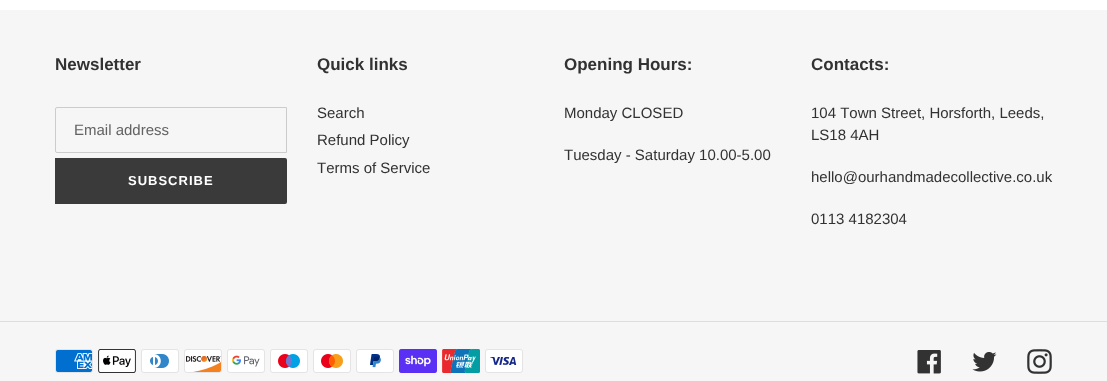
<!DOCTYPE html>
<meta charset="utf-8">
<style>body { margin: 0 } canvas { display: block }</style>
<canvas id="canvas" width="1107" height="381"></canvas>
<img id="img1" src="img_01.png" hidden>
<img id="img2" src="img_02.png" hidden>
<img id="img3" src="img_03.png" hidden>
<img id="img4" src="img_04.png" hidden>
<img id="img5" src="img_05.png" hidden>
<img id="img6" src="img_06.png" hidden>
<img id="img7" src="img_07.png" hidden>
<img id="img8" src="img_08.png" hidden>
<img id="img9" src="img_09.png" hidden>
<img id="img10" src="img_10.png" hidden>
<img id="img11" src="img_11.png" hidden>
<img id="img12" src="img_12.png" hidden>
<img id="img13" src="img_13.png" hidden>
<img id="img14" src="img_14.png" hidden>
<script>
window.onload = function () {
	const canvas = document.getElementById("canvas");
	const ctx = canvas.getContext("2d");
	ctx.miterLimit = 4;
	ctx.fontKerning = "none";
	function txt(s, x, y) {
		ctx.fillText(s, x, y);
	}
	function fill(x, y, w, h) {
		ctx.fillRect(x, y, w, h);
	}
	function img(id, x, y, w, h) {
		ctx.drawImage(document.getElementById(id), x, y, w, h);
	}

	ctx.fillStyle = "#FFFFFF";
	fill(0, 0, 1107, 381);
	ctx.fillStyle = "#F6F6F6";
	fill(0, 10, 1107, 371);
	ctx.beginPath();
	ctx.roundRect(55.5, 107.5, 231, 45, [1.5, 0, 0, 1.5]);
	ctx.strokeStyle = "#CCCCCC";
	ctx.stroke();
	ctx.fillStyle = "#3A3A3A";
	ctx.beginPath();
	ctx.roundRect(55, 158, 232, 46, [0, 2, 2, 0]);
	ctx.fill();
	ctx.fillStyle = "#DDDDDD";
	fill(0, 321, 1107, 1);
	img("img1", 55, 349, 38, 24);
	img("img2", 98, 349, 38, 24);
	img("img3", 141, 349, 38, 24);
	img("img4", 184, 349, 38, 24);
	img("img5", 227, 349, 38, 24);
	img("img6", 270, 349, 38, 24);
	img("img7", 313, 349, 38, 24);
	img("img8", 356, 349, 38, 24);
	img("img9", 399, 349, 38, 24);
	img("img10", 442, 349, 38, 24);
	img("img11", 485, 349, 38, 24);
	img("img12", 917, 350, 24, 24);
	img("img13", 972, 352, 25, 20);
	img("img14", 1027, 349, 25, 25);
	ctx.font = "bold 17px Liberation Sans";
	ctx.fillStyle = "#333232";
	txt("Newsletter", 55, 70);
	ctx.font = "15px Liberation Sans";
	ctx.fillStyle = "#626262";
	txt("Email address", 74, 135);
	ctx.letterSpacing = "1px";
	ctx.font = "bold 13px Liberation Sans";
	ctx.fillStyle = "#FFFFFF";
	txt("SUBSCRIBE", 128, 185);
	ctx.letterSpacing = "0px";
	ctx.font = "bold 17px Liberation Sans";
	ctx.fillStyle = "#333232";
	txt("Quick links", 317, 70);
	ctx.font = "15px Liberation Sans";
	txt("Search", 317, 118);
	txt("Refund Policy", 317, 145);
	txt("Terms of Service", 317, 173);
	ctx.font = "bold 17px Liberation Sans";
	txt("Opening Hours:", 564, 70);
	ctx.font = "15px Liberation Sans";
	txt("Monday CLOSED", 564, 118);
	txt("Tuesday - Saturday 10.00-5.00", 564, 160);
	ctx.font = "bold 17px Liberation Sans";
	txt("Contacts:", 811, 70);
	ctx.font = "15px Liberation Sans";
	txt("104 Town Street, Horsforth, Leeds,", 811, 118);
	txt("LS18 4AH", 811, 140);
	txt("hello@ourhandmadecollective.co.uk", 811, 182);
	txt("0113 4182304", 811, 224);
};
</script>
